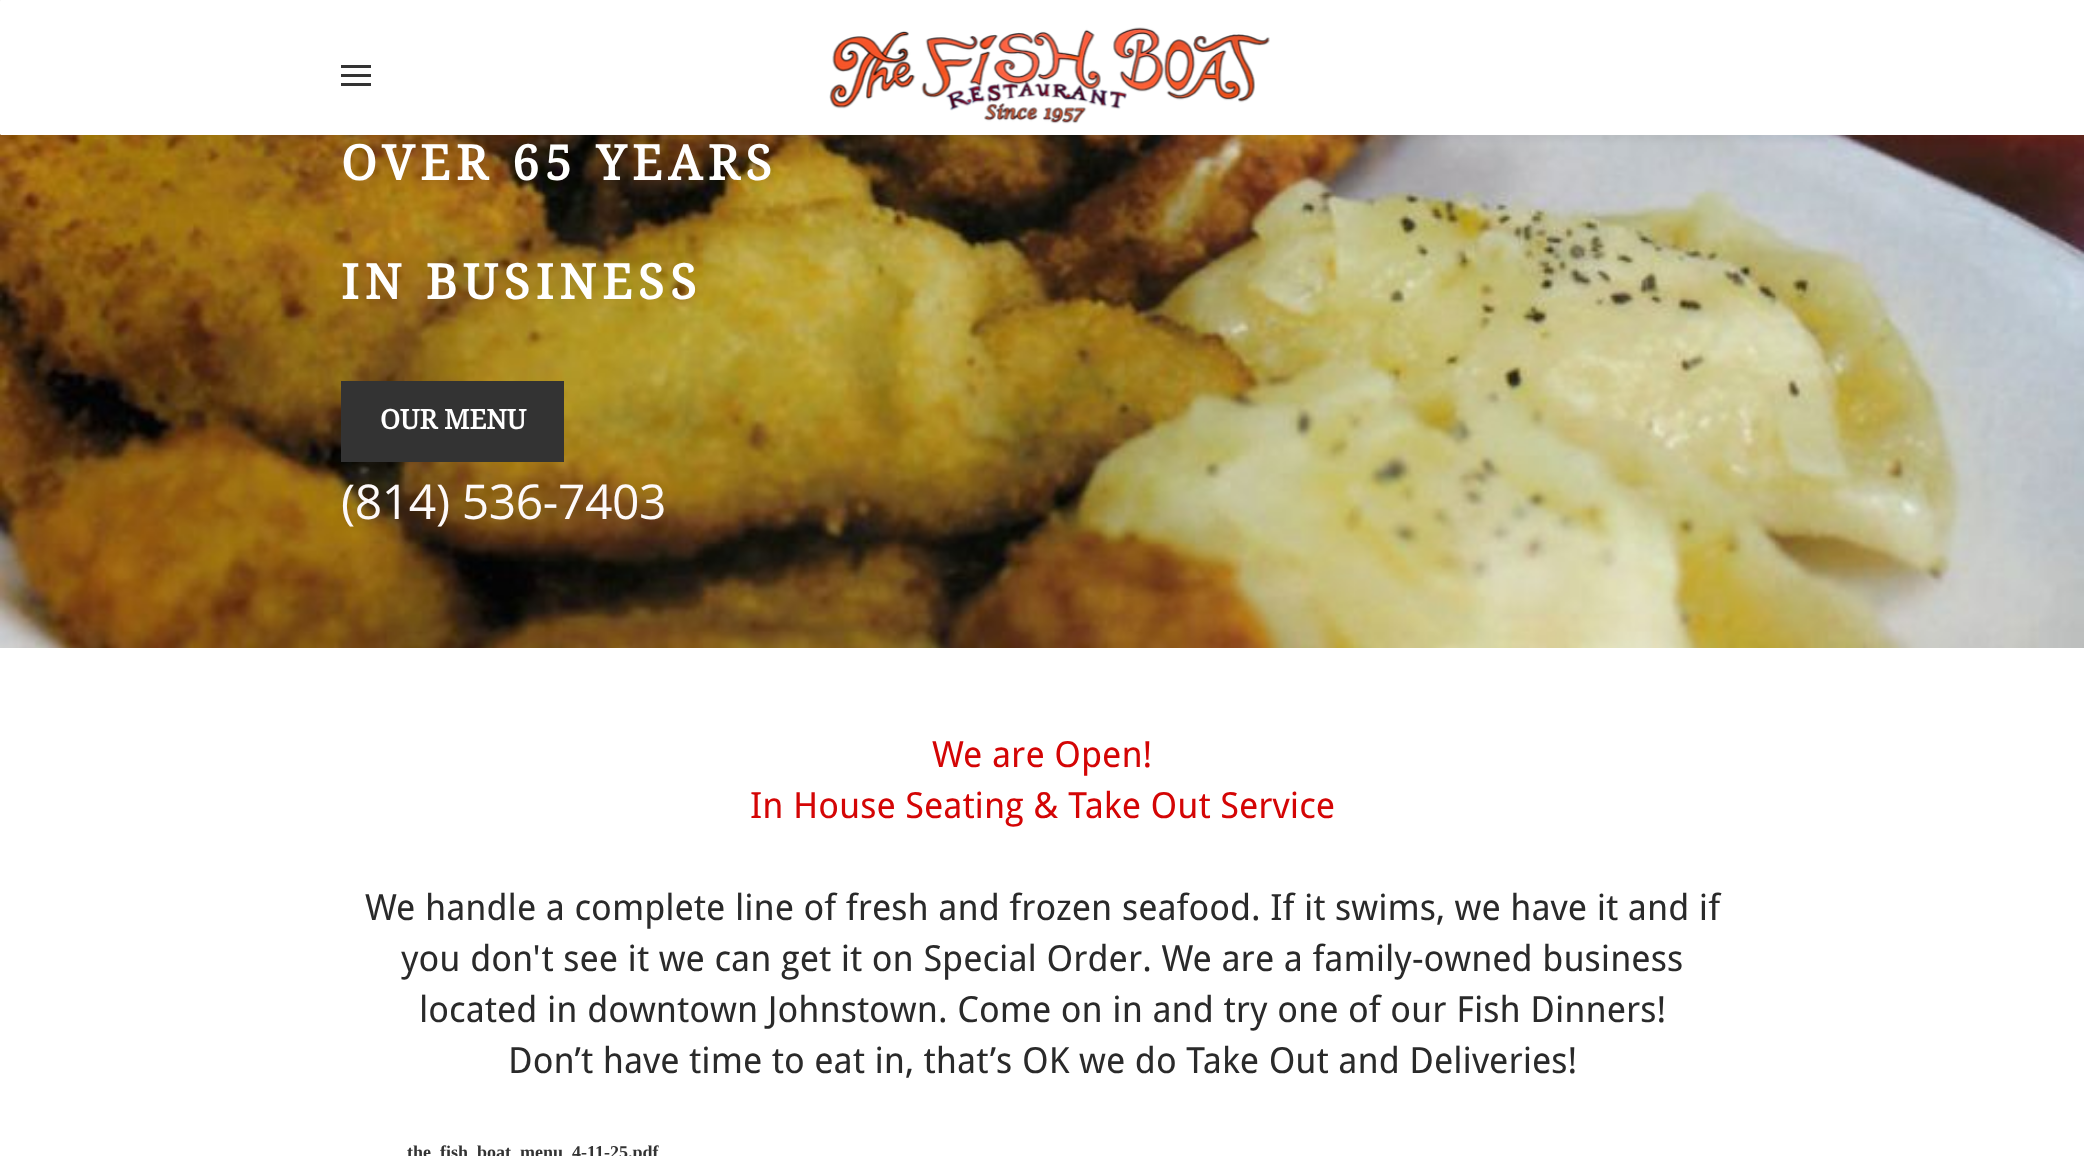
<!DOCTYPE html>
<meta charset="utf-8">
<style>body { margin: 0 } canvas { display: block }</style>
<canvas id="canvas" width="2084" height="1156"></canvas>
<img id="img1" src="img_02.png" hidden>
<img id="img2" src="img_01.png" hidden>
<script>
window.onload = function () {
	const canvas = document.getElementById("canvas");
	const ctx = canvas.getContext("2d");
	ctx.miterLimit = 4;
	ctx.fontKerning = "normal";
	function txt(s, x, y) {
		ctx.fillText(s, x, y);
	}
	function fill(x, y, w, h) {
		ctx.fillRect(x, y, w, h);
	}
	function round(x, y, w, h, r) {
		ctx.beginPath();
		ctx.roundRect(x, y, w, h, r);
		ctx.fill();
	}
	function img(id, x, y, w, h) {
		ctx.drawImage(document.getElementById(id), x, y, w, h);
	}

	ctx.fillStyle = "#F2F2F2";
	fill(0, 0, 2084, 1156);
	img("img1", 0, 133, 2084, 515);
	ctx.fillStyle = "rgba(0, 0, 0, 0.05)";
	ctx.filter = "blur(4.5px)";
	ctx.beginPath();
	ctx.roundRect(0, 3, 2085, 135, 1.5);
	ctx.fill();
	ctx.filter = "none";
	ctx.fillStyle = "#FFFFFF";
	round(0, 0, 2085, 135, 1.5);
	ctx.fillStyle = "#333333";
	fill(341, 65, 30, 3);
	fill(341, 74, 30, 3);
	fill(341, 83, 30, 3);
	img("img2", 829, 27, 441, 97);
	fill(341, 381, 223, 81);
	ctx.fillStyle = "#FFFFFF";
	fill(0, 648, 2084, 508);
	ctx.letterSpacing = "6px";
	ctx.font = "bold 48px Droid Serif";
	txt("OVER 65 YEARS", 341, 180);
	txt("IN BUSINESS", 341, 299);
	ctx.letterSpacing = "0px";
	ctx.font = "bold 27px Droid Serif";
	txt("OUR MENU", 380, 429);
	ctx.letterSpacing = "-0.4px";
	ctx.font = "48px Open Sans";
	ctx.fillStyle = "#FDF9F9";
	txt("(814) 536-7403", 341, 519);
	ctx.letterSpacing = "0px";
	ctx.wordSpacing = "0.25px";
	ctx.font = "36px Droid Sans";
	ctx.fillStyle = "#D40505";
	txt("We are Open!", 932, 767);
	txt("In House Seating & Take Out Service", 750, 818);
	ctx.fillStyle = "#2A2A2A";
	txt("We handle a complete line of fresh and frozen seafood. If it swims, we have it and if", 365, 920);
	txt("you don't see it we can get it on Special Order. We are a family-owned business", 401, 971);
	txt("located in downtown Johnstown. Come on in and try one of our Fish Dinners!", 419, 1022);
	txt("Don’t have time to eat in, that’s OK we do Take Out and Deliveries!", 508, 1073);
	ctx.wordSpacing = "0px";
	ctx.font = "bold 18px Liberation Serif";
	ctx.fillStyle = "#333333";
	txt("the_fish_boat_menu_4-11-25.pdf", 407, 1158);
};
</script>
